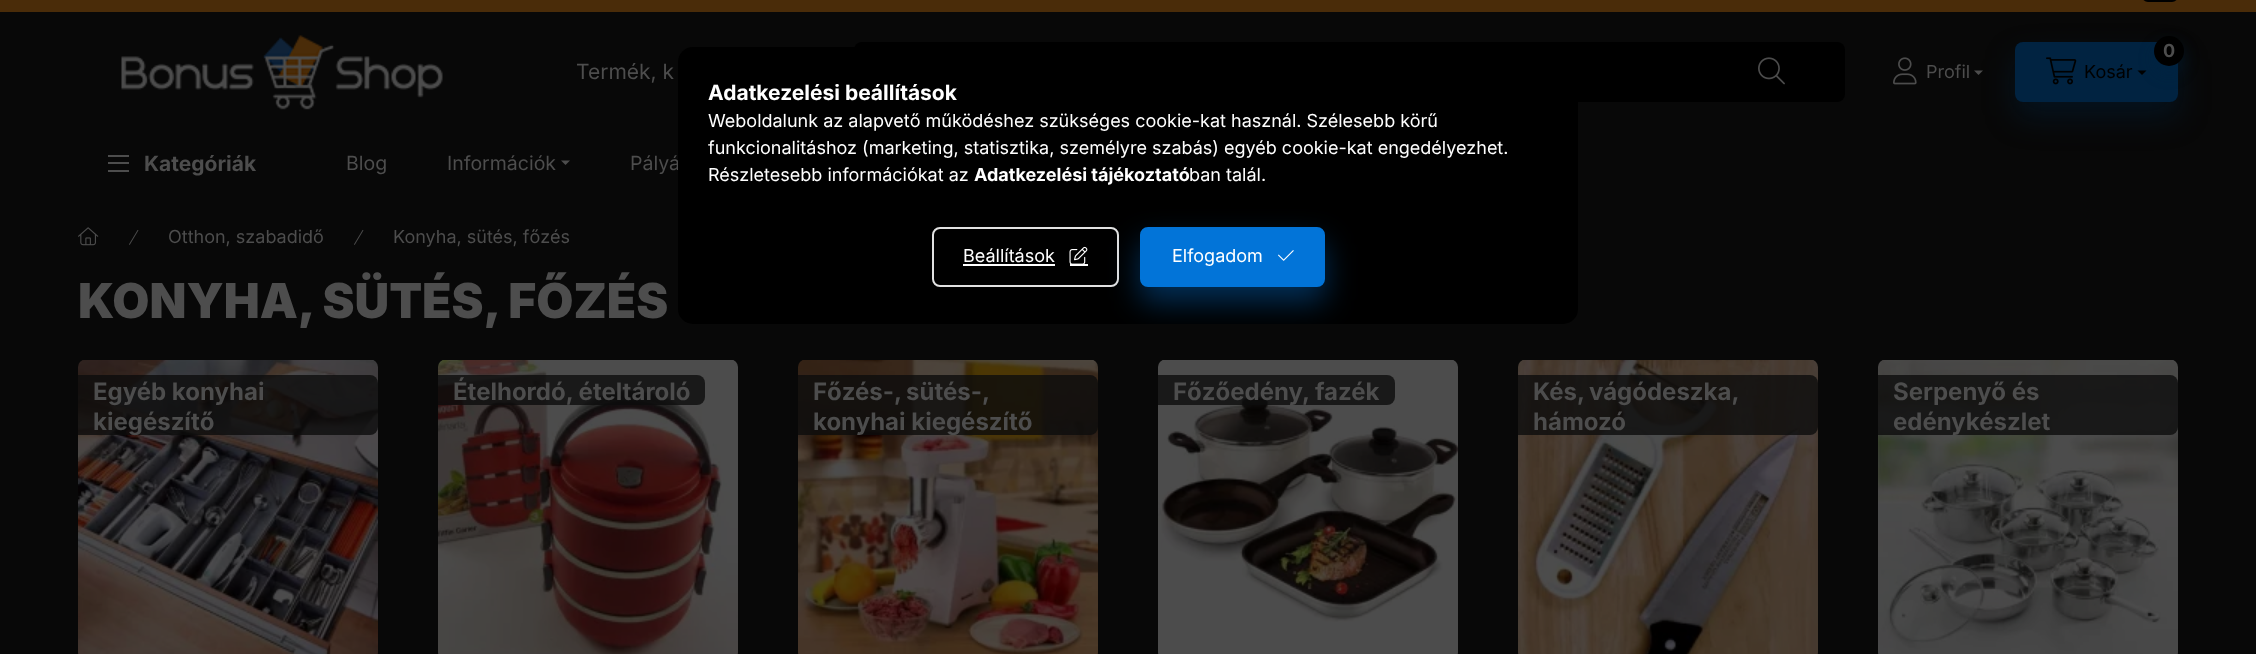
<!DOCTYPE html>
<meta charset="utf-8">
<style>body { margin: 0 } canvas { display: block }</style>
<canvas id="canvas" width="2256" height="654"></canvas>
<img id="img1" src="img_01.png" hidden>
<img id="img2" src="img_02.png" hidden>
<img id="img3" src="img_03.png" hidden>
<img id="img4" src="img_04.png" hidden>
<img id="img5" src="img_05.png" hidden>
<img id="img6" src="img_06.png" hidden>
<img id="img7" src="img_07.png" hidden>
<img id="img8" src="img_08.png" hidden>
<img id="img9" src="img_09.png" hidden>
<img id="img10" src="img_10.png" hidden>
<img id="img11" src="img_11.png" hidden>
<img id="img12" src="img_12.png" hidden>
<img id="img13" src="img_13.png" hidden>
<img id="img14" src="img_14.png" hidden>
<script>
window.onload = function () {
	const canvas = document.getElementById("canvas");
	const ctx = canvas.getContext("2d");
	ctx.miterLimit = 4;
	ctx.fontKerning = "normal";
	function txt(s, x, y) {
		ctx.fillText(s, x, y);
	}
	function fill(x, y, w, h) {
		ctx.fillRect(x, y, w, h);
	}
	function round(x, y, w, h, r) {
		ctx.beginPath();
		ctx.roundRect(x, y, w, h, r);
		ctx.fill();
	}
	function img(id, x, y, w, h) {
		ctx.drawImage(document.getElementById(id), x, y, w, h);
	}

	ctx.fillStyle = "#080808";
	fill(0, 0, 2256, 654);
	ctx.fillStyle = "rgba(1, 35, 65, 0.4)";
	ctx.filter = "blur(15px)";
	ctx.beginPath();
	ctx.roundRect(2015, 57, 163, 60, 8);
	ctx.fill();
	ctx.filter = "none";
	ctx.fillStyle = "#4A2C09";
	fill(0, 0, 2256, 12);
	ctx.beginPath();
	ctx.roundRect(2143, -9, 34, 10, 7);
	ctx.strokeStyle = "#000000";
	ctx.lineWidth = 2;
	ctx.stroke();
	img("img1", 121, 35, 322, 75);
	ctx.fillStyle = "#000000";
	round(854, 42, 991, 60, 8);
	img("img2", 1758, 57, 27, 28);
	img("img3", 1893, 57, 24, 28);
	ctx.fillStyle = "#4D4D4D";
	ctx.beginPath();
	ctx.moveTo(1974, 70.5);
	ctx.lineTo(1983, 70.5);
	ctx.lineTo(1978.5, 75);
	ctx.closePath();
	ctx.fill();
	ctx.fillStyle = "#012341";
	round(2015, 42, 163, 60, 8);
	ctx.fillStyle = "rgba(1, 35, 65, 0.4)";
	ctx.filter = "blur(7.5px)";
	ctx.beginPath();
	ctx.roundRect(2154, 44, 30, 30, 15);
	ctx.fill();
	ctx.filter = "none";
	ctx.fillStyle = "#000000";
	ctx.beginPath();
	ctx.arc(2169, 51, 15, 0, Math.PI * 2);
	ctx.fill();
	img("img4", 2046, 57, 31, 28);
	ctx.beginPath();
	ctx.moveTo(2137.5, 70.5);
	ctx.lineTo(2146.5, 70.5);
	ctx.lineTo(2142, 75);
	ctx.closePath();
	ctx.fill();
	ctx.fillStyle = "#4D4D4D";
	fill(108, 155, 21, 2);
	fill(108, 162, 21, 2);
	fill(108, 170, 21, 2);
	ctx.beginPath();
	ctx.moveTo(561, 160.5);
	ctx.lineTo(570, 160.5);
	ctx.lineTo(565.5, 165);
	ctx.closePath();
	ctx.fill();
	img("img5", 78, 227, 21, 19);
	img("img6", 129, 229, 10, 16);
	img("img6", 354, 229, 10, 16);
	img("img7", 78, 360, 300, 294);
	ctx.fillStyle = "rgba(12, 12, 12, 0.8)";
	ctx.beginPath();
	ctx.roundRect(78, 375, 300, 60, [0, 8, 8, 0]);
	ctx.fill();
	img("img8", 438, 360, 300, 294);
	ctx.beginPath();
	ctx.roundRect(438, 375, 267, 30, [0, 8, 8, 0]);
	ctx.fill();
	img("img9", 798, 360, 300, 294);
	ctx.beginPath();
	ctx.roundRect(798, 375, 300, 60, [0, 8, 8, 0]);
	ctx.fill();
	img("img10", 1158, 360, 300, 294);
	ctx.beginPath();
	ctx.roundRect(1158, 375, 237, 30, [0, 8, 8, 0]);
	ctx.fill();
	img("img11", 1518, 360, 300, 294);
	ctx.beginPath();
	ctx.roundRect(1518, 375, 300, 60, [0, 8, 8, 0]);
	ctx.fill();
	img("img12", 1878, 360, 300, 294);
	ctx.beginPath();
	ctx.roundRect(1878, 375, 300, 60, [0, 8, 8, 0]);
	ctx.fill();
	ctx.font = "21px Inter";
	ctx.fillStyle = "#4D4D4D";
	txt("Termék, k", 576, 79);
	ctx.font = "18px Inter";
	txt("Profil", 1926, 78);
	ctx.font = "bold 18px Inter";
	txt("0", 2163, 57);
	ctx.font = "18px Inter";
	ctx.fillStyle = "#000000";
	txt("Kosár", 2084, 78);
	ctx.font = "bold 21px Inter";
	ctx.fillStyle = "#4D4D4D";
	txt("Kategóriák", 144, 171);
	ctx.font = "19.5px Inter";
	txt("Blog", 346, 170);
	txt("Információk", 447, 170);
	txt("Pályá", 630, 170);
	ctx.font = "18px Inter";
	txt("Otthon, szabadidő", 168, 243);
	txt("Konyha, sütés, főzés", 393, 243);
	ctx.font = "900 48px Inter";
	txt("KONYHA, SÜTÉS, FŐZÉS", 78, 318);
	ctx.font = "bold 24px Inter";
	txt("Egyéb konyhai", 93, 400);
	txt("kiegészítő", 93, 430);
	txt("Ételhordó, ételtároló", 453, 400);
	ctx.wordSpacing = "-1px";
	txt("Főzés-, sütés-,", 813, 400);
	ctx.save();
	ctx.beginPath();
	ctx.rect(798, 375, 300, 60);
	ctx.clip();
	ctx.wordSpacing = "0px";
	txt("konyhai kiegészítő", 813, 430);
	ctx.restore();
	ctx.wordSpacing = "0px";
	txt("Főzőedény, fazék", 1173, 400);
	ctx.wordSpacing = "-1px";
	txt("Kés, vágódeszka,", 1533, 400);
	ctx.wordSpacing = "0px";
	txt("hámozó", 1533, 430);
	txt("Serpenyő és", 1893, 400);
	txt("edénykészlet", 1893, 430);
	ctx.fillStyle = "#000000";
	round(678, 47, 900, 277, 15);
	ctx.font = "bold 21px Inter";
	ctx.fillStyle = "#FFFFFF";
	txt("Adatkezelési beállítások", 708, 100);
	ctx.font = "18px Inter";
	txt("Weboldalunk az alapvető működéshez szükséges cookie-kat használ. Szélesebb körű", 708, 127);
	txt("funkcionalitáshoz (marketing, statisztika, személyre szabás) egyéb cookie-kat engedélyezhet.", 708, 154);
	txt("Részletesebb információkat az", 708, 181);
	ctx.font = "bold 18px Inter";
	txt("Adatkezelési tájékoztató", 974, 181);
	ctx.font = "18px Inter";
	txt("ban talál.", 1189, 181);
	ctx.beginPath();
	ctx.roundRect(933, 228, 185, 58, 7);
	ctx.strokeStyle = "#E1E1E1";
	ctx.stroke();
	txt("Beállítások", 963, 262);
	fill(963, 264, 92, 2);
	img("img13", 1069, 246, 19, 18);
	fill(1070, 264, 18, 2);
	ctx.save();
	ctx.beginPath();
	ctx.roundRect(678, 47, 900, 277, 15);
	ctx.clip();
	ctx.fillStyle = "rgba(2, 116, 216, 0.4)";
	ctx.filter = "blur(15px)";
	ctx.beginPath();
	ctx.roundRect(1140, 242, 185, 60, 8);
	ctx.fill();
	ctx.filter = "none";
	ctx.restore();
	ctx.fillStyle = "#0274D8";
	ctx.beginPath();
	ctx.roundRect(1141, 228, 183, 58, 7);
	ctx.fill();
	ctx.strokeStyle = "#0274D8";
	ctx.stroke();
	ctx.fillStyle = "#FFFFFF";
	txt("Elfogadom", 1172, 262);
	img("img14", 1278, 250, 16, 11);
};
</script>
